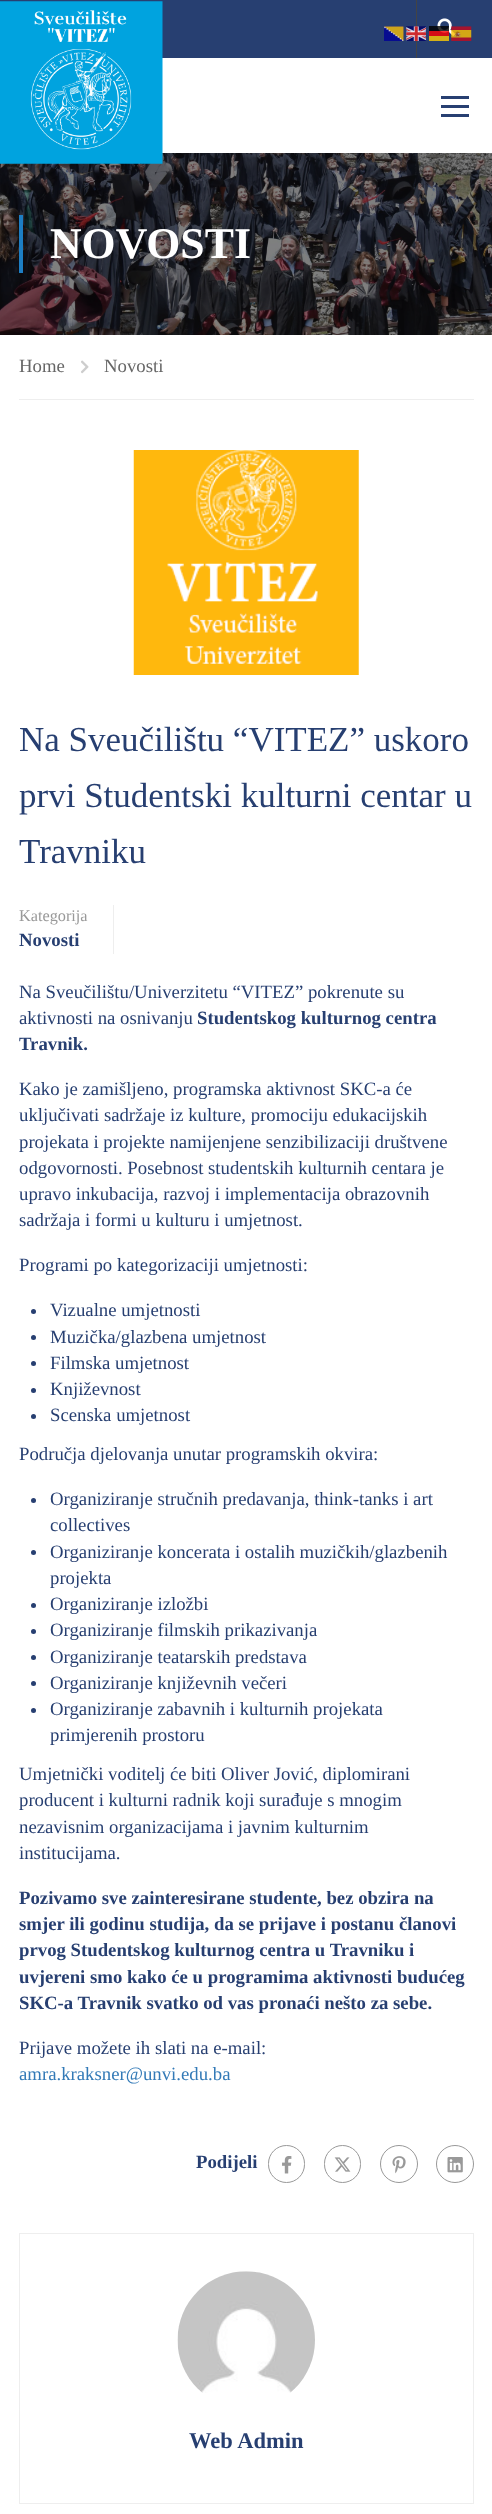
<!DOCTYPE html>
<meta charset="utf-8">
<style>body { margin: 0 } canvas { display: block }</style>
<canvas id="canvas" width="492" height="2514"></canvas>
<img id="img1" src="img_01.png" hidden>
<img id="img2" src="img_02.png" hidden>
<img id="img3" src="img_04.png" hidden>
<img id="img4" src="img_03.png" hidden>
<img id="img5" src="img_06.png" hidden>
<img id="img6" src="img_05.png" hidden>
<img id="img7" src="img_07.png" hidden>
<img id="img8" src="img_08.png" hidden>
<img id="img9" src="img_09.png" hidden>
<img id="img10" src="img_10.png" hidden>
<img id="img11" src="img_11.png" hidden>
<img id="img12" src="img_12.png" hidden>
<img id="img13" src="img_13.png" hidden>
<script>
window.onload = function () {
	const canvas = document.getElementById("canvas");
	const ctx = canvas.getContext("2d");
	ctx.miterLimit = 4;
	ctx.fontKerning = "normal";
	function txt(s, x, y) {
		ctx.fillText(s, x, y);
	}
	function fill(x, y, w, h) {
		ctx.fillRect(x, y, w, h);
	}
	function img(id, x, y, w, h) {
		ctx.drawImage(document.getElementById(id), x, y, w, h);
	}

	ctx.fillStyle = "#FFFFFF";
	fill(0, 0, 492, 2514);
	ctx.fillStyle = "#273F71";
	fill(0, 0, 492, 58);
	img("img1", 384, 26, 20, 15);
	ctx.fillStyle = "#444444";
	fill(416, 0, 1, 58);
	img("img2", 406, 26, 20, 15);
	img("img3", 437, 18, 18, 18);
	ctx.fillStyle = "rgba(0, 0, 0, 0.8)";
	fill(429, 26, 20, 5);
	img("img4", 451, 26, 21, 15);
	ctx.fillStyle = "rgba(255, 0, 0, 0.8)";
	fill(429, 31, 20, 5);
	ctx.fillStyle = "#D4B017";
	fill(429, 36, 20, 5);
	img("img5", 0, 153, 492, 182);
	img("img6", 0, 1, 163, 163);
	ctx.fillStyle = "#273F71";
	fill(441, 96, 28, 3);
	fill(441, 105, 28, 3);
	fill(441, 114, 28, 3);
	ctx.fillStyle = "#1D7EC3";
	fill(19, 215, 4, 58);
	ctx.fillStyle = "#EEEEEE";
	fill(19, 399, 455, 1);
	img("img7", 81, 360, 8, 14);
	img("img8", 133, 450, 226, 225);
	fill(113, 905, 1, 49);
	ctx.fillStyle = "#273F71";
	ctx.beginPath();
	ctx.arc(33.5, 1311.5, 2.5, 0, Math.PI * 2);
	ctx.fill();
	ctx.beginPath();
	ctx.arc(33.5, 1337.5, 2.5, 0, Math.PI * 2);
	ctx.fill();
	ctx.beginPath();
	ctx.arc(33.5, 1363.5, 2.5, 0, Math.PI * 2);
	ctx.fill();
	ctx.beginPath();
	ctx.arc(33.5, 1390.5, 2.5, 0, Math.PI * 2);
	ctx.fill();
	ctx.beginPath();
	ctx.arc(33.5, 1416.5, 2.5, 0, Math.PI * 2);
	ctx.fill();
	ctx.beginPath();
	ctx.arc(33.5, 1500.5, 2.5, 0, Math.PI * 2);
	ctx.fill();
	ctx.beginPath();
	ctx.arc(33.5, 1552.5, 2.5, 0, Math.PI * 2);
	ctx.fill();
	ctx.beginPath();
	ctx.arc(33.5, 1605.5, 2.5, 0, Math.PI * 2);
	ctx.fill();
	ctx.beginPath();
	ctx.arc(33.5, 1631.5, 2.5, 0, Math.PI * 2);
	ctx.fill();
	ctx.beginPath();
	ctx.arc(33.5, 1657.5, 2.5, 0, Math.PI * 2);
	ctx.fill();
	ctx.beginPath();
	ctx.arc(33.5, 1683.5, 2.5, 0, Math.PI * 2);
	ctx.fill();
	ctx.beginPath();
	ctx.arc(33.5, 1710.5, 2.5, 0, Math.PI * 2);
	ctx.fill();
	ctx.beginPath();
	ctx.roundRect(268.5, 2145.5, 36, 37, 18);
	ctx.strokeStyle = "#999999";
	ctx.stroke();
	img("img9", 282, 2156, 10, 18);
	ctx.beginPath();
	ctx.roundRect(324.5, 2145.5, 36, 37, 18);
	ctx.stroke();
	img("img10", 334, 2157, 17, 15);
	ctx.beginPath();
	ctx.arc(399, 2164, 18.5, 0, Math.PI * 2);
	ctx.stroke();
	img("img11", 392, 2156, 14, 18);
	ctx.beginPath();
	ctx.arc(455, 2164, 18.5, 0, Math.PI * 2);
	ctx.stroke();
	img("img12", 447, 2157, 16, 16);
	ctx.strokeStyle = "#EEEEEE";
	ctx.strokeRect(19.5, 2233.5, 454, 270);
	img("img13", 177, 2271, 138, 122);
	ctx.font = "bold 43.75px Liberation Serif";
	ctx.fillStyle = "#FFFFFF";
	txt("NOVOSTI", 50, 258);
	ctx.font = "18.75px Liberation Serif";
	ctx.fillStyle = "#666666";
	txt("Home", 19, 372);
	txt("Novosti", 104, 372);
	ctx.font = "35px Liberation Serif";
	ctx.fillStyle = "#273F71";
	txt("Na Sveučilištu “VITEZ” uskoro", 19, 751);
	txt("prvi Studentski kulturni centar u", 19, 807);
	txt("Travniku", 19, 863);
	ctx.font = "16.25px Liberation Serif";
	ctx.fillStyle = "#999999";
	txt("Kategorija", 19, 921);
	ctx.font = "bold 18.75px Liberation Serif";
	ctx.fillStyle = "#273F71";
	txt("Novosti", 19, 946);
	ctx.font = "18.75px Liberation Serif";
	txt("Na Sveučilištu/Univerzitetu “VITEZ” pokrenute su", 19, 998);
	txt("aktivnosti na osnivanju", 19, 1024);
	ctx.font = "bold 18.75px Liberation Serif";
	txt("Studentskog kulturnog centra", 197, 1024);
	txt("Travnik.", 19, 1050);
	ctx.font = "18.75px Liberation Serif";
	txt("Kako je zamišljeno, programska aktivnost SKC-a će", 19, 1095);
	txt("uključivati sadržaje iz kulture, promociju edukacijskih", 19, 1121);
	txt("projekata i projekte namijenjene senzibilizaciji društvene", 19, 1148);
	txt("odgovornosti. Posebnost studentskih kulturnih centara je", 19, 1174);
	txt("upravo inkubacija, razvoj i implementacija obrazovnih", 19, 1200);
	txt("sadržaja i formi u kulturu i umjetnost.", 19, 1226);
	txt("Programi po kategorizaciji umjetnosti:", 19, 1271);
	txt("Vizualne umjetnosti", 50, 1316);
	txt("Muzička/glazbena umjetnost", 50, 1343);
	txt("Filmska umjetnost", 50, 1369);
	txt("Književnost", 50, 1395);
	txt("Scenska umjetnost", 50, 1421);
	txt("Područja djelovanja unutar programskih okvira:", 19, 1460);
	txt("Organiziranje stručnih predavanja, think-tanks i art", 50, 1505);
	txt("collectives", 50, 1531);
	txt("Organiziranje koncerata i ostalih muzičkih/glazbenih", 50, 1558);
	txt("projekta", 50, 1584);
	txt("Organiziranje izložbi", 50, 1610);
	txt("Organiziranje filmskih prikazivanja", 50, 1636);
	txt("Organiziranje teatarskih predstava", 50, 1663);
	txt("Organiziranje književnih večeri", 50, 1689);
	txt("Organiziranje zabavnih i kulturnih projekata", 50, 1715);
	txt("primjerenih prostoru", 50, 1741);
	txt("Umjetnički voditelj će biti Oliver Jović, diplomirani", 19, 1780);
	txt("producent i kulturni radnik koji surađuje s mnogim", 19, 1806);
	txt("nezavisnim organizacijama i javnim kulturnim", 19, 1833);
	txt("institucijama.", 19, 1859);
	ctx.font = "bold 18.75px Liberation Serif";
	txt("Pozivamo sve zainteresirane studente, bez obzira na", 19, 1904);
	txt("smjer ili godinu studija, da se prijave i postanu članovi", 19, 1930);
	txt("prvog Studentskog kulturnog centra u Travniku i", 19, 1956);
	txt("uvjereni smo kako će u programima aktivnosti budućeg", 19, 1983);
	txt("SKC-a Travnik svatko od vas pronaći nešto za sebe.", 19, 2009);
	ctx.font = "18.75px Liberation Serif";
	txt("Prijave možete ih slati na e-mail:", 19, 2054);
	ctx.fillStyle = "#337AB7";
	txt("amra.kraksner@unvi.edu.ba", 19, 2080);
	ctx.font = "bold 18.75px Liberation Serif";
	ctx.fillStyle = "#273F71";
	txt("Podijeli", 196, 2168);
	ctx.font = "bold 22.5px Liberation Serif";
	txt("Web Admin", 189, 2448);
};
</script>
